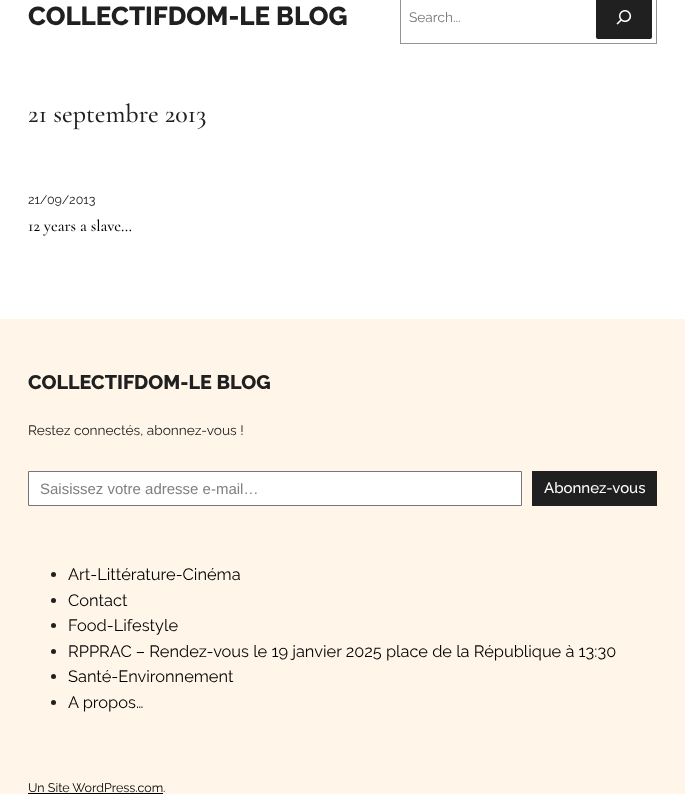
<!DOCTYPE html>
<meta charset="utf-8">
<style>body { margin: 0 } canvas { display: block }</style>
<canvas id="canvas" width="685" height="794"></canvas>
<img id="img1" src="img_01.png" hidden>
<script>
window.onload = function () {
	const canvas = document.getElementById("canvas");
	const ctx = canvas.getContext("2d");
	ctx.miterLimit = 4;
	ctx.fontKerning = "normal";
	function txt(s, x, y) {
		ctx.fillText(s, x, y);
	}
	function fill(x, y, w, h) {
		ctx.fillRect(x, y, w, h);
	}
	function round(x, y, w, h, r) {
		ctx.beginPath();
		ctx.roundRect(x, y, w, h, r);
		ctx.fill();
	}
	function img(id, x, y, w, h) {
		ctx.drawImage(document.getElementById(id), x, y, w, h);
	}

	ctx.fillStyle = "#FFFFFF";
	fill(0, 0, 685, 794);
	ctx.strokeStyle = "#949494";
	ctx.strokeRect(400.5, -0.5, 256, 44);
	ctx.fillStyle = "#202020";
	round(596, -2, 56, 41, 2);
	img("img1", 616, 10, 16, 15);
	ctx.fillStyle = "#FFF6E9";
	fill(0, 319, 685, 475);
	ctx.fillStyle = "#FFFFFF";
	ctx.beginPath();
	ctx.rect(28.5, 471.5, 493, 34);
	ctx.fill();
	ctx.strokeStyle = "#767676";
	ctx.stroke();
	ctx.fillStyle = "#202020";
	fill(532, 471, 125, 35);
	ctx.beginPath();
	ctx.arc(53.5, 574.5, 2.5, 0, Math.PI * 2);
	ctx.fill();
	ctx.beginPath();
	ctx.arc(53.5, 600.5, 2.5, 0, Math.PI * 2);
	ctx.fill();
	ctx.beginPath();
	ctx.arc(53.5, 625.5, 2.5, 0, Math.PI * 2);
	ctx.fill();
	ctx.beginPath();
	ctx.arc(53.5, 651.5, 2.5, 0, Math.PI * 2);
	ctx.fill();
	ctx.beginPath();
	ctx.arc(53.5, 676.5, 2.5, 0, Math.PI * 2);
	ctx.fill();
	ctx.beginPath();
	ctx.arc(53.5, 702.5, 2.5, 0, Math.PI * 2);
	ctx.fill();
	ctx.fillStyle = "#000000";
	fill(28, 793, 135, 1);
	ctx.font = "800 26px Raleway";
	ctx.fillStyle = "#202020";
	txt("COLLECTIFDOM-LE BLOG", 28, 25);
	ctx.font = "13.7px Raleway";
	ctx.fillStyle = "#757575";
	txt("Search...", 409, 22);
	ctx.font = "500 26px Cormorant Garamond";
	ctx.fillStyle = "#202020";
	txt("21 septembre 2013", 28, 122);
	ctx.font = "12.5px Raleway";
	txt("21/09/2013", 28, 204);
	ctx.font = "500 16.4px Cormorant Garamond";
	ctx.fillStyle = "#000000";
	txt("12 years a slave…", 28, 231);
	ctx.font = "800 19.75px Raleway";
	ctx.fillStyle = "#202020";
	txt("COLLECTIFDOM-LE BLOG", 28, 389);
	ctx.font = "13.7px Raleway";
	txt("Restez connectés, abonnez-vous !", 28, 435);
	ctx.font = "15px Liberation Sans";
	ctx.fillStyle = "#808080";
	txt("Saisissez votre adresse e-mail…", 40, 494);
	ctx.font = "500 15px Raleway";
	ctx.fillStyle = "#FFFFFF";
	txt("Abonnez-vous", 544, 493);
	ctx.font = "16.4px Raleway";
	ctx.fillStyle = "#000000";
	txt("Art-Littérature-Cinéma", 68, 580);
	txt("Contact", 68, 606);
	txt("Food-Lifestyle", 68, 631);
	txt("RPPRAC – Rendez-vous le 19 janvier 2025 place de la République à 13:30", 68, 657);
	txt("Santé-Environnement", 68, 682);
	txt("A propos…", 68, 708);
	ctx.font = "12.5px Raleway";
	txt("Un Site WordPress.com", 28, 792);
	ctx.fillStyle = "#202020";
	txt(".", 163, 792);
};
</script>
